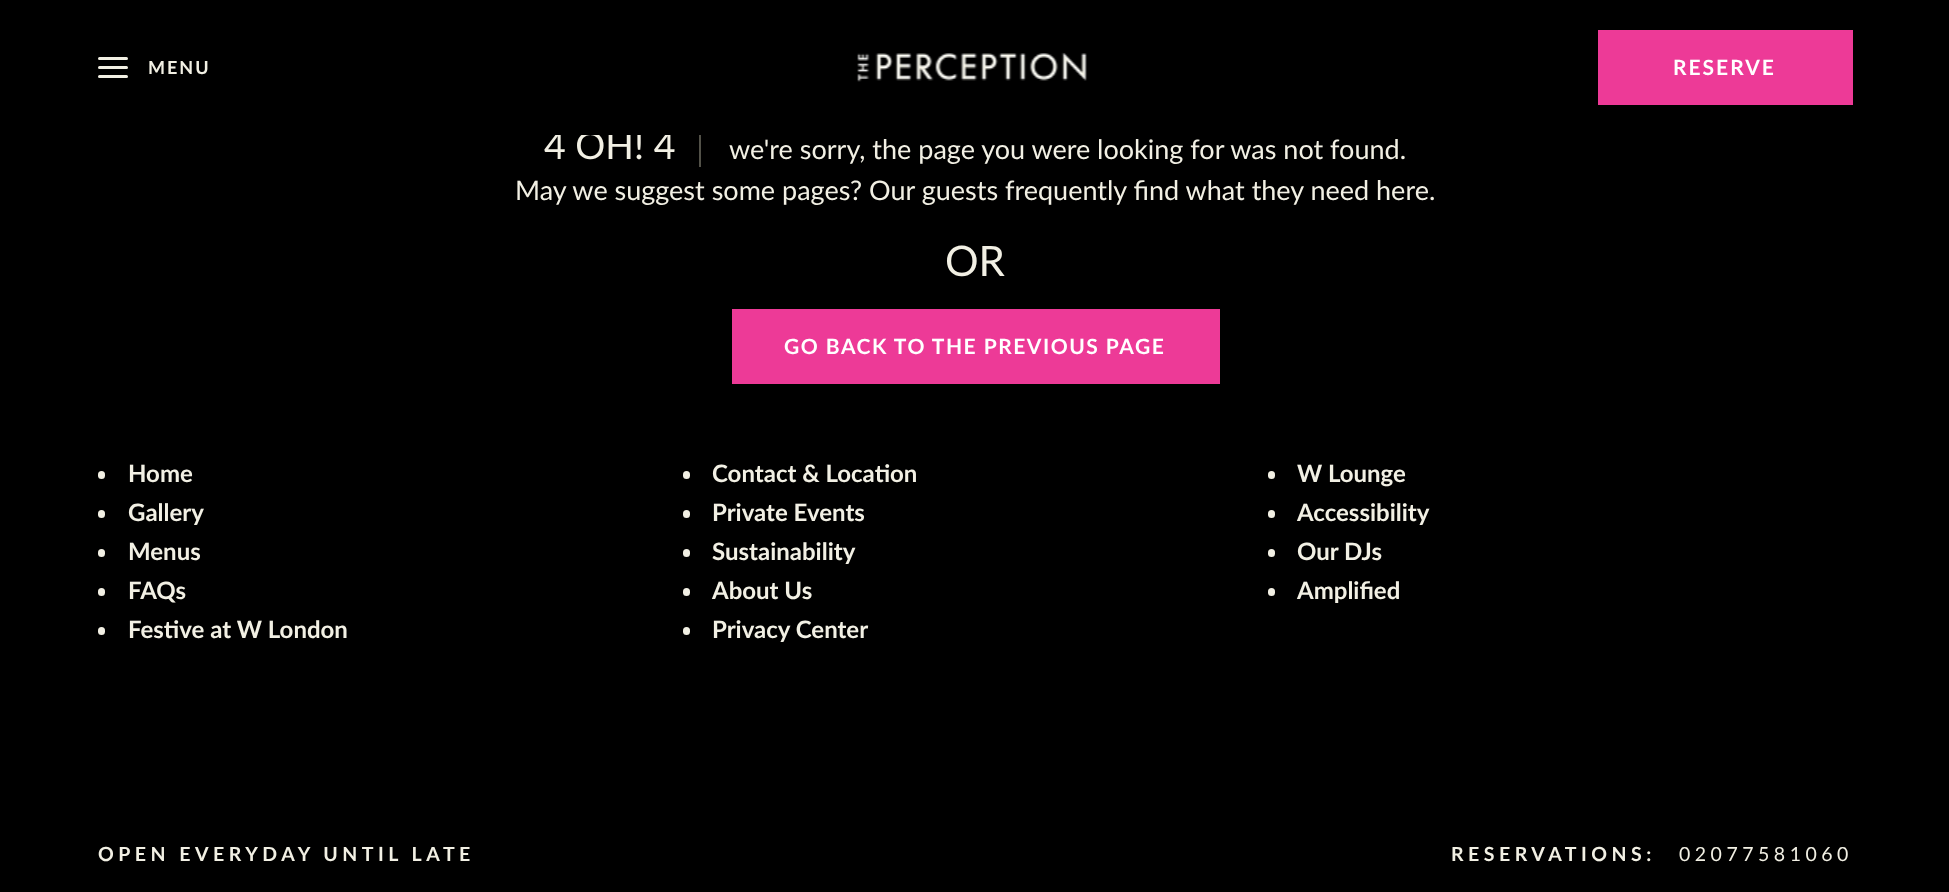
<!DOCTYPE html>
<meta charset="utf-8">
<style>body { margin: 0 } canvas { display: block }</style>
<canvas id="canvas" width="1949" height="892"></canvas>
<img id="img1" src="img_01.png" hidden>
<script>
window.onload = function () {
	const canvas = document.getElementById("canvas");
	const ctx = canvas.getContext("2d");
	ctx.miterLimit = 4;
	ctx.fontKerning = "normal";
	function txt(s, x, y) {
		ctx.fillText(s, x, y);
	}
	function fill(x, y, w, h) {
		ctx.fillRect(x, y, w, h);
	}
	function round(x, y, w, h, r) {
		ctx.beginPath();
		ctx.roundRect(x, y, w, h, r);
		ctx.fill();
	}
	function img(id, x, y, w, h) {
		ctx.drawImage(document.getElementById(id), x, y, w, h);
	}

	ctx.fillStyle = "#000000";
	fill(0, 0, 1949, 892);
	ctx.fillStyle = "#F2F0E4";
	round(98, 57, 30, 3, 1.5);
	round(98, 66, 30, 3, 1.5);
	round(98, 75, 30, 3, 1.5);
	img("img1", 857, 52, 230, 30);
	ctx.fillStyle = "#ED3A97";
	fill(1598, 30, 255, 75);
	ctx.fillStyle = "#525148";
	fill(699, 135, 2, 32);
	ctx.fillStyle = "#ED3A97";
	fill(732, 309, 488, 75);
	ctx.fillStyle = "#F2F0E4";
	round(98, 471, 7, 8, 3.5);
	round(683, 471, 7, 8, 3.5);
	round(1268, 471, 7, 8, 3.5);
	round(98, 510, 7, 8, 3.5);
	round(683, 510, 7, 8, 3.5);
	round(1268, 510, 7, 8, 3.5);
	round(98, 549, 7, 8, 3.5);
	round(683, 549, 7, 8, 3.5);
	round(1268, 549, 7, 8, 3.5);
	round(98, 588, 7, 8, 3.5);
	round(683, 588, 7, 8, 3.5);
	round(1268, 588, 7, 8, 3.5);
	round(98, 627, 7, 8, 3.5);
	round(683, 627, 7, 8, 3.5);
	ctx.letterSpacing = "2px";
	ctx.font = "bold 18px Lato";
	txt("MENU", 148, 74);
	ctx.font = "bold 21px Lato";
	ctx.fillStyle = "#FFFFFF";
	txt("RESERVE", 1673, 75);
	ctx.letterSpacing = "0px";
	ctx.font = "37.5px Lato";
	ctx.fillStyle = "#F2F0E4";
	txt("4 OH! 4", 544, 159);
	ctx.fillStyle = "#000000";
	fill(555, 131, 116, 4);
	ctx.font = "27px Lato";
	ctx.fillStyle = "#F2F0E4";
	txt("we're sorry, the page you were looking for was not found.", 729, 159);
	txt("May we suggest some pages? Our guests frequently find what they need here.", 515, 200);
	ctx.font = "42px Lato";
	txt("OR", 945, 276);
	ctx.letterSpacing = "1.5px";
	ctx.font = "bold 21px Lato";
	ctx.fillStyle = "#FFFFFF";
	txt("GO BACK TO THE PREVIOUS PAGE", 784, 354);
	ctx.letterSpacing = "0px";
	ctx.font = "bold 24px Lato";
	ctx.fillStyle = "#F2F0E4";
	txt("Home", 128, 482);
	txt("Contact & Location", 712, 482);
	txt("W Lounge", 1297, 482);
	txt("Gallery", 128, 521);
	txt("Private Events", 712, 521);
	txt("Accessibility", 1297, 521);
	txt("Menus", 128, 560);
	txt("Sustainability", 712, 560);
	txt("Our DJs", 1297, 560);
	txt("FAQs", 128, 599);
	txt("About Us", 712, 599);
	txt("Amplified", 1297, 599);
	txt("Festive at W London", 128, 638);
	txt("Privacy Center", 712, 638);
	ctx.letterSpacing = "4.5px";
	ctx.font = "bold 19.5px Lato";
	txt("OPEN EVERYDAY UNTIL LATE", 98, 861);
	txt("RESERVATIONS:", 1451, 861);
	ctx.font = "19.5px Lato";
	txt("02077581060", 1679, 861);
};
</script>
